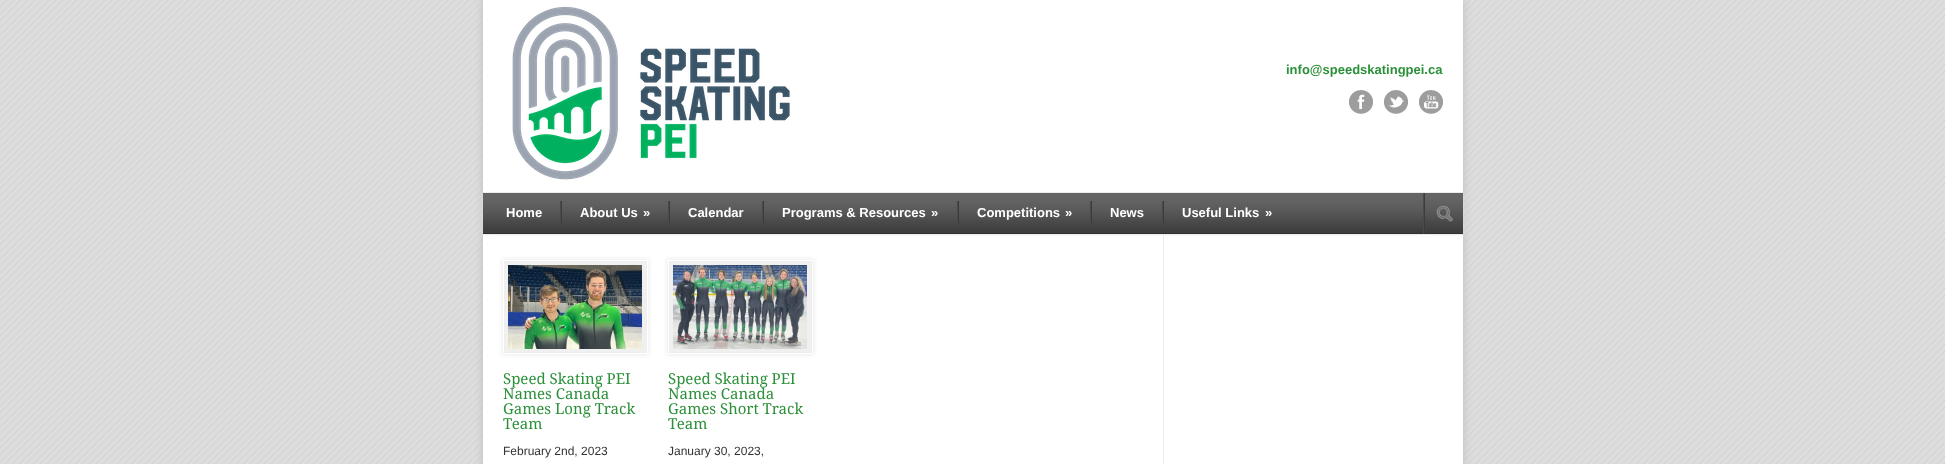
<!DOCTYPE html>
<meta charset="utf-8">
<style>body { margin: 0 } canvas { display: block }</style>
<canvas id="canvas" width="1945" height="464"></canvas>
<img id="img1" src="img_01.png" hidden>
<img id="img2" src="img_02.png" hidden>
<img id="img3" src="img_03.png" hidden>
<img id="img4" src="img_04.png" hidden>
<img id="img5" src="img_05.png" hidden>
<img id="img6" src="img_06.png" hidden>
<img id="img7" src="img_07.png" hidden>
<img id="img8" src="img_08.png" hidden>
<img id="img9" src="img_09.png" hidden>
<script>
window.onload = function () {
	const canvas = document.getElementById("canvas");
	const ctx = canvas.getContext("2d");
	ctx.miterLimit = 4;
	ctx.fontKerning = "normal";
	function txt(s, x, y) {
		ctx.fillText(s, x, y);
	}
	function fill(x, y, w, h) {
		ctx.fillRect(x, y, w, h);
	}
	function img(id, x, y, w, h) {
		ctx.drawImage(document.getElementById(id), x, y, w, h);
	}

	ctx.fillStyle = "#DDDDDD";
	fill(0, 0, 1945, 464);
	img("img1", 0, 0, 1945, 464);
	ctx.fillStyle = "#BBBBBB";
	ctx.filter = "blur(4px)";
	ctx.beginPath();
	ctx.rect(483, 0, 980, 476);
	ctx.fill();
	ctx.filter = "none";
	ctx.fillStyle = "#FFFFFF";
	fill(483, 0, 980, 464);
	img("img2", 512, 6, 278, 174);
	img("img3", 1349, 90, 24, 24);
	img("img4", 1384, 90, 24, 24);
	img("img5", 1419, 90, 24, 24);
	ctx.fillStyle = "#F5F5F5";
	ctx.filter = "blur(2.5px)";
	ctx.beginPath();
	ctx.rect(484, 194, 978, 41);
	ctx.fill();
	ctx.filter = "none";
	ctx.fillStyle = "#323232";
	fill(483, 193, 980, 41);
	img("img6", 483, 193, 980, 40);
	ctx.fillStyle = "#ECECEC";
	fill(483, 192, 980, 1);
	fill(483, 234, 980, 1);
	ctx.fillStyle = "#4A4A4A";
	fill(560, 201, 1, 24);
	fill(668, 201, 1, 24);
	ctx.fillStyle = "#3C3C3C";
	fill(561, 201, 1, 24);
	ctx.fillStyle = "#4A4A4A";
	fill(762, 201, 1, 24);
	ctx.fillStyle = "#3C3C3C";
	fill(669, 201, 1, 24);
	ctx.fillStyle = "#4A4A4A";
	fill(957, 201, 1, 24);
	ctx.fillStyle = "#3C3C3C";
	fill(763, 201, 1, 24);
	ctx.fillStyle = "#4A4A4A";
	fill(1090, 201, 1, 24);
	ctx.fillStyle = "#3C3C3C";
	fill(958, 201, 1, 24);
	ctx.fillStyle = "#4A4A4A";
	fill(1162, 201, 1, 24);
	ctx.fillStyle = "#3C3C3C";
	fill(1091, 201, 1, 24);
	fill(1163, 201, 1, 24);
	ctx.fillStyle = "#4A4A4A";
	fill(1423, 193, 1, 41);
	ctx.fillStyle = "#3C3C3C";
	fill(1424, 193, 1, 41);
	img("img7", 1436, 205, 17, 17);
	ctx.fillStyle = "#ECECEC";
	ctx.filter = "blur(2px)";
	ctx.beginPath();
	ctx.rect(502, 259, 147, 96);
	ctx.fill();
	ctx.filter = "none";
	ctx.fillStyle = "#F0F0F0";
	fill(505, 262, 141, 90);
	ctx.strokeStyle = "#FFFFFF";
	ctx.strokeRect(503.5, 260.5, 144, 93);
	img("img8", 508, 265, 134, 84);
	ctx.fillStyle = "#ECECEC";
	ctx.filter = "blur(2px)";
	ctx.beginPath();
	ctx.rect(667, 259, 147, 96);
	ctx.fill();
	ctx.filter = "none";
	ctx.fillStyle = "#F0F0F0";
	fill(670, 262, 141, 90);
	ctx.strokeRect(668.5, 260.5, 144, 93);
	img("img9", 673, 265, 134, 84);
	ctx.fillStyle = "#ECECEC";
	fill(1163, 235, 1, 229);
	ctx.font = "bold 13px Liberation Sans";
	ctx.fillStyle = "#2C903A";
	txt("info@speedskatingpei.ca", 1286, 74);
	ctx.fillStyle = "#FFFFFF";
	txt("Home", 506, 217);
	txt("About Us", 580, 217);
	txt("»", 643, 217);
	txt("Calendar", 688, 217);
	txt("Programs & Resources", 782, 217);
	txt("»", 931, 217);
	txt("Competitions", 977, 217);
	txt("»", 1065, 217);
	txt("News", 1110, 217);
	txt("Useful Links", 1182, 217);
	txt("»", 1265, 217);
	ctx.font = "15px Droid Serif";
	ctx.fillStyle = "#2C903A";
	txt("Speed Skating PEI", 503, 384);
	txt("Names Canada", 503, 399);
	txt("Games Long Track", 503, 414);
	txt("Team", 503, 429);
	ctx.font = "12px Liberation Sans";
	ctx.fillStyle = "#323232";
	txt("February 2nd, 2023", 503, 455);
	ctx.font = "15px Droid Serif";
	ctx.fillStyle = "#2C903A";
	txt("Speed Skating PEI", 668, 384);
	txt("Names Canada", 668, 399);
	txt("Games Short Track", 668, 414);
	txt("Team", 668, 429);
	ctx.font = "12px Liberation Sans";
	ctx.fillStyle = "#323232";
	txt("January 30, 2023,", 668, 455);
};
</script>
